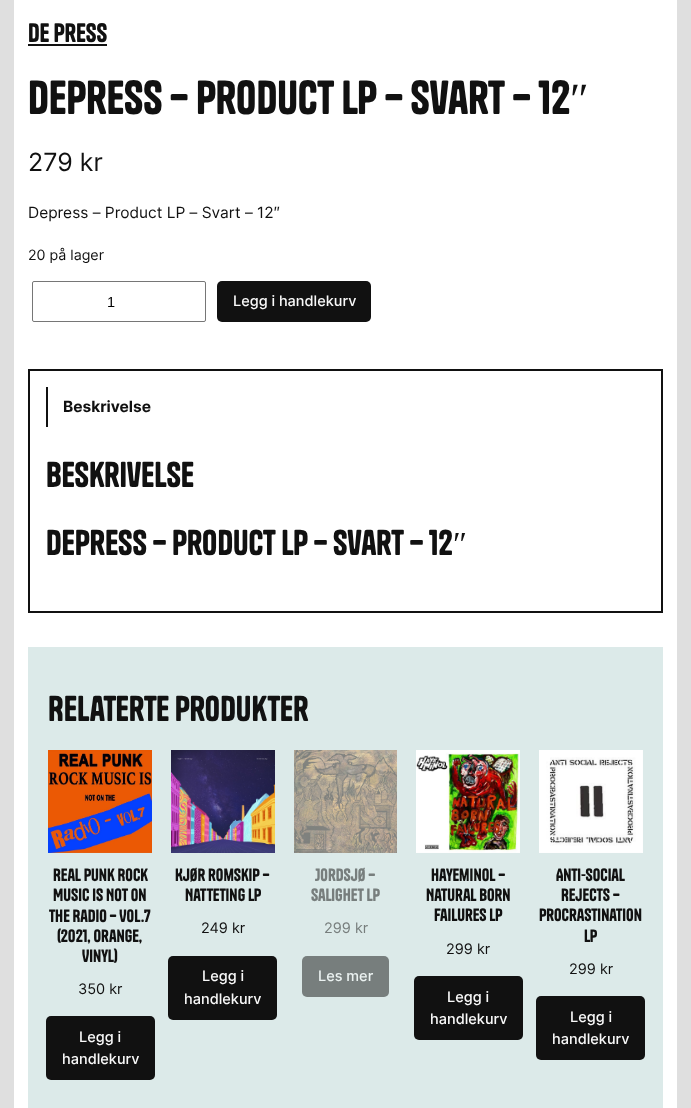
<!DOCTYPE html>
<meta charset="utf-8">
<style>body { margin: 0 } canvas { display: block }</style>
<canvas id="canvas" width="691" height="1108"></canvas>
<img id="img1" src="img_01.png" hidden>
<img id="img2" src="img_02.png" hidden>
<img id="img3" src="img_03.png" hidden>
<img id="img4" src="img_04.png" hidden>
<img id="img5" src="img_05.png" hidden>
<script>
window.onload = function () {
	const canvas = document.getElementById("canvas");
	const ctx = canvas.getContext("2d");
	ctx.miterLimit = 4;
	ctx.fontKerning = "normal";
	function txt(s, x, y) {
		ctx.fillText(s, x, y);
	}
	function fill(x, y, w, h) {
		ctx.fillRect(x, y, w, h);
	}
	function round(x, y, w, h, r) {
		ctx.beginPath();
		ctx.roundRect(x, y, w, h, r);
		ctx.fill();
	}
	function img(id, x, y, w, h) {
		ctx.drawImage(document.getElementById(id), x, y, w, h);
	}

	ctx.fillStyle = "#DFDFDF";
	fill(0, 0, 691, 1108);
	ctx.fillStyle = "#FFFFFF";
	fill(14, 0, 663, 1108);
	ctx.fillStyle = "#111111";
	fill(28, 44, 79, 2);
	ctx.beginPath();
	ctx.roundRect(32.5, 281.5, 173, 40, 1.5);
	ctx.strokeStyle = "#767676";
	ctx.stroke();
	round(217, 281, 154, 41, 5);
	ctx.strokeStyle = "#111111";
	ctx.lineWidth = 2;
	ctx.strokeRect(29, 370, 633, 242);
	fill(46, 387, 2, 40);
	ctx.fillStyle = "#DCEAE9";
	fill(28, 647, 635, 461);
	img("img1", 48, 750, 104, 103);
	ctx.fillStyle = "#111111";
	round(46, 1016, 109, 64, 5);
	img("img2", 171, 750, 104, 103);
	round(168, 956, 109, 64, 5);
	img("img3", 294, 750, 103, 103);
	ctx.fillStyle = "#777E7D";
	round(302, 956, 87, 41, 5);
	img("img4", 416, 750, 104, 103);
	ctx.fillStyle = "#111111";
	round(414, 976, 109, 64, 5);
	img("img5", 539, 750, 104, 103);
	round(536, 996, 109, 64, 5);
	ctx.font = "25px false";
	txt("De Press", 28, 42);
	ctx.font = "44.75px false";
	txt("dePress – Product LP – Svart – 12", 28, 114);
	ctx.font = "44.75px Liberation Serif";
	txt("″", 570, 114);
	ctx.font = "25px Inter";
	txt("279 kr", 28, 171);
	ctx.font = "15.5px Inter";
	txt("Depress – Product LP – Svart – 12″", 28, 218);
	ctx.font = "14.25px Inter";
	txt("20 på lager", 28, 260);
	ctx.font = "14.5px Liberation Sans";
	ctx.fillStyle = "#000000";
	txt("1", 107, 307);
	ctx.font = "500 14.5px Inter";
	ctx.fillStyle = "#F9F9F9";
	txt("Legg i handlekurv", 233, 306);
	ctx.font = "bold 15.5px Inter";
	ctx.fillStyle = "#111111";
	txt("Beskrivelse", 63, 412);
	ctx.font = "33.6px false";
	txt("Beskrivelse", 46, 487);
	txt("Depress – Product LP – Svart – 12", 46, 555);
	ctx.font = "33.6px Liberation Serif";
	txt("″", 453, 555);
	ctx.font = "33.6px false";
	txt("Relaterte produkter", 48, 721);
	ctx.font = "16.75px false";
	txt("Real Punk Rock", 53, 881);
	txt("Music Is Not On", 53, 901);
	txt("The Radio – Vol.7", 49, 922);
	txt("(2021, Orange,", 57, 942);
	txt("Vinyl)", 82, 962);
	ctx.font = "14.5px Inter";
	txt("350 kr", 78, 994);
	ctx.font = "500 14.5px Inter";
	ctx.fillStyle = "#F9F9F9";
	txt("Legg i", 79, 1042);
	txt("handlekurv", 62, 1064);
	ctx.font = "16.75px false";
	ctx.fillStyle = "#111111";
	txt("Kjør romskip –", 175, 881);
	txt("Natteting LP", 185, 901);
	ctx.font = "14.5px Inter";
	txt("249 kr", 201, 933);
	ctx.font = "500 14.5px Inter";
	ctx.fillStyle = "#F9F9F9";
	txt("Legg i", 202, 981);
	txt("handlekurv", 184, 1004);
	ctx.font = "16.75px false";
	ctx.fillStyle = "#777E7D";
	txt("Jordsjø –", 315, 881);
	txt("Salighet LP", 311, 901);
	ctx.font = "14.5px Inter";
	txt("299 kr", 324, 933);
	ctx.font = "500 14.5px Inter";
	ctx.fillStyle = "#EBF2F1";
	txt("Les mer", 318, 981);
	ctx.font = "16.75px false";
	ctx.fillStyle = "#111111";
	txt("Hayeminol –", 431, 881);
	txt("Natural Born", 426, 901);
	txt("Failures LP", 434, 921);
	ctx.font = "14.5px Inter";
	txt("299 kr", 446, 954);
	ctx.font = "500 14.5px Inter";
	ctx.fillStyle = "#F9F9F9";
	txt("Legg i", 447, 1002);
	txt("handlekurv", 430, 1024);
	ctx.font = "16.75px false";
	ctx.fillStyle = "#111111";
	txt("Anti-social", 556, 881);
	txt("Rejects –", 561, 901);
	txt("Procrastination", 539, 921);
	txt("LP", 584, 942);
	ctx.font = "14.5px Inter";
	txt("299 kr", 569, 974);
	ctx.font = "500 14.5px Inter";
	ctx.fillStyle = "#F9F9F9";
	txt("Legg i", 570, 1022);
	txt("handlekurv", 552, 1044);
};
</script>
